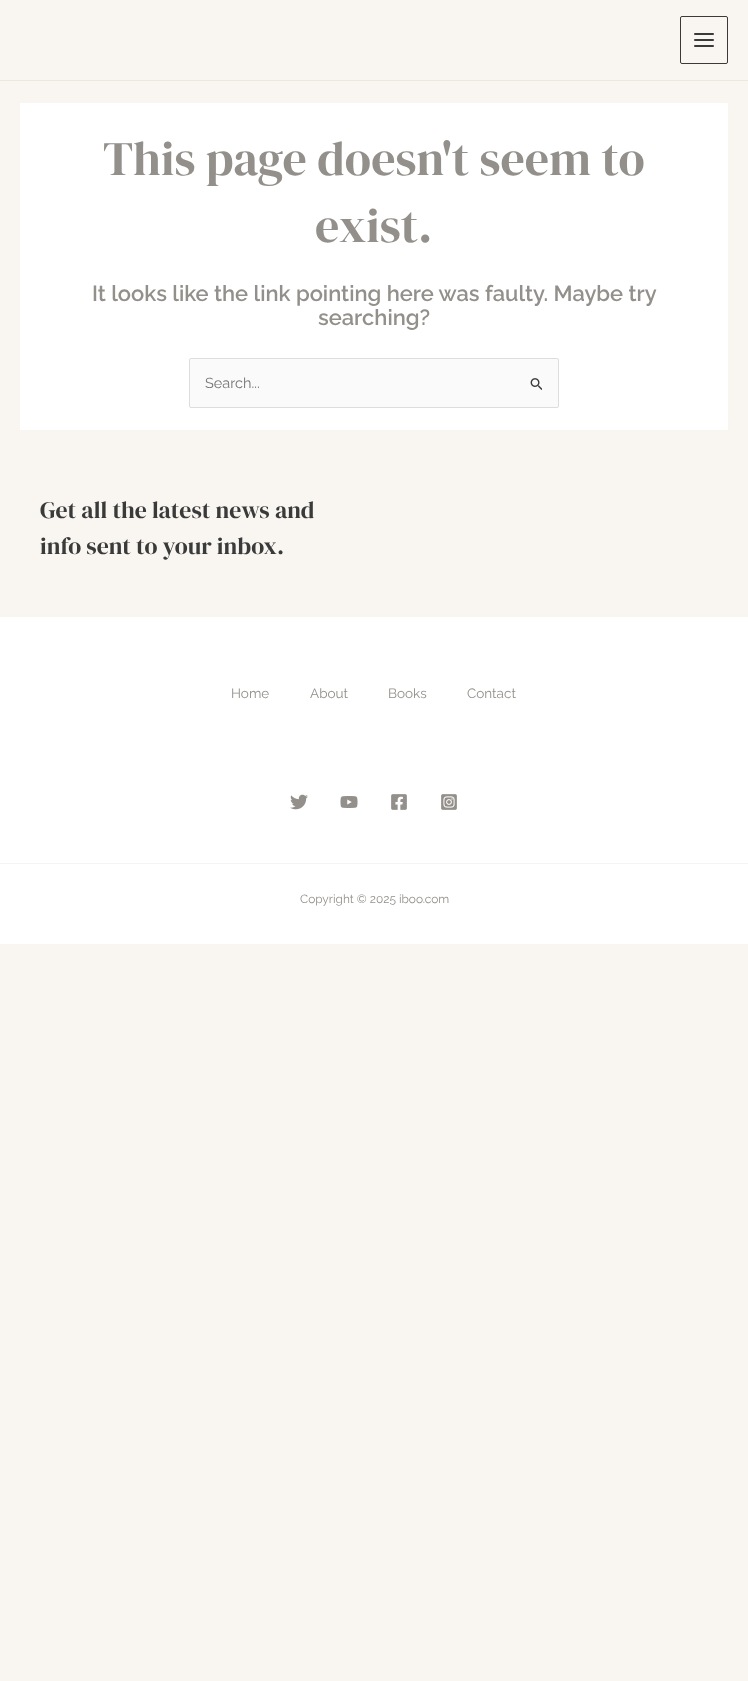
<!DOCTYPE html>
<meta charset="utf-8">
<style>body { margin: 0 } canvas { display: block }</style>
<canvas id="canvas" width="748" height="1681"></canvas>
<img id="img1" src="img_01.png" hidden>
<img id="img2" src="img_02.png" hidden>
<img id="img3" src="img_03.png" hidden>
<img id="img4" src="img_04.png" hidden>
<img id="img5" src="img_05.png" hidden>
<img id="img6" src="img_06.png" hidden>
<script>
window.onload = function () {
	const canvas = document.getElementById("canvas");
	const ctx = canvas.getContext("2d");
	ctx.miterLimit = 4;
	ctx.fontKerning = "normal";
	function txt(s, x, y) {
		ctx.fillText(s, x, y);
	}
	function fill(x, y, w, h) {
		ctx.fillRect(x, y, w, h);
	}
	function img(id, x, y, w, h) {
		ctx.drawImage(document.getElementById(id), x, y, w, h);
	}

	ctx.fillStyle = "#F9F6F1";
	fill(0, 0, 748, 1681);
	ctx.fillStyle = "#EDE7DD";
	fill(0, 80, 748, 1);
	ctx.beginPath();
	ctx.roundRect(680.5, 16.5, 47, 47, 1.5);
	ctx.strokeStyle = "#3A3A3A";
	ctx.stroke();
	img("img1", 694, 33, 20, 14);
	ctx.fillStyle = "#FFFFFF";
	fill(20, 103, 708, 327);
	ctx.fillStyle = "#FAFAFA";
	ctx.beginPath();
	ctx.roundRect(189.5, 358.5, 369, 49, 1.5);
	ctx.fill();
	ctx.strokeStyle = "#DDDDDD";
	ctx.stroke();
	img("img2", 530, 378, 12, 12);
	ctx.fillStyle = "#FFFFFF";
	fill(0, 617, 748, 246);
	img("img3", 290, 794, 18, 16);
	img("img4", 340, 796, 18, 12);
	img("img5", 391, 794, 16, 16);
	img("img6", 441, 794, 16, 16);
	fill(0, 864, 748, 80);
	ctx.fillStyle = "#F2F5F7";
	fill(0, 863, 748, 1);
	ctx.font = "48px DM Serif Display";
	ctx.fillStyle = "#93908B";
	txt("This page doesn't seem to", 103, 175);
	txt("exist.", 315, 242);
	ctx.font = "600 21.9px Raleway";
	txt("It looks like the link pointing here was faulty. Maybe try", 92, 301);
	txt("searching?", 318, 325);
	ctx.font = "14.5px Raleway";
	ctx.fillStyle = "#757575";
	txt("Search...", 205, 388);
	ctx.font = "23.75px DM Serif Display";
	ctx.fillStyle = "#3A3A3A";
	txt("Get all the latest news and", 40, 518);
	txt("info sent to your inbox.", 40, 554);
	ctx.font = "13.5px Raleway";
	ctx.fillStyle = "#93908B";
	txt("Home", 231, 698);
	txt("About", 310, 698);
	txt("Books", 388, 698);
	txt("Contact", 467, 698);
	ctx.font = "11.9px Raleway";
	txt("Copyright © 2025 iboo.com", 300, 903);
};
</script>
